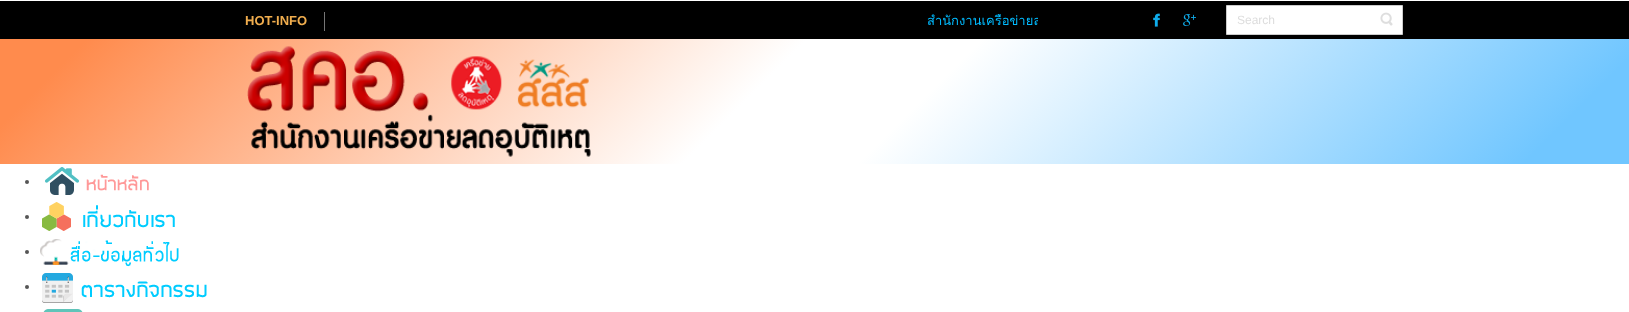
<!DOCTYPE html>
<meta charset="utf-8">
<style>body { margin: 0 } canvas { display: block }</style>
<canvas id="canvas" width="1629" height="312"></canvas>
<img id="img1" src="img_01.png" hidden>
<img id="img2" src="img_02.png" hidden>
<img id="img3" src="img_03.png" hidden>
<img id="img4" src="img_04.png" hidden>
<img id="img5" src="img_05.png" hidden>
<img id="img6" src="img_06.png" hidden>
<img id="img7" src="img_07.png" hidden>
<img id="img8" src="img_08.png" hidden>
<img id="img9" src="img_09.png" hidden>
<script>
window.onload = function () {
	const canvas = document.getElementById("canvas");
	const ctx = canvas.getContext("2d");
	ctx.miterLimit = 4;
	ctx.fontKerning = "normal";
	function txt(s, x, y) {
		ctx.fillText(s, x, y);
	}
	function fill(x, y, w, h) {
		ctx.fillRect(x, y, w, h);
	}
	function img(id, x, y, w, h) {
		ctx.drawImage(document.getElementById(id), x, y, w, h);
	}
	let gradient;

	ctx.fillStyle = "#FFFFFF";
	fill(0, 0, 1629, 312);
	ctx.fillStyle = "#000000";
	fill(0, 1, 1629, 38);
	ctx.fillStyle = "#757575";
	fill(324, 12, 1, 19);
	img("img1", 1153, 13, 7, 14);
	img("img2", 1183, 14, 13, 13);
	ctx.fillStyle = "#FFFFFF";
	ctx.beginPath();
	ctx.rect(1226.5, 5.5, 176, 29);
	ctx.fill();
	ctx.strokeStyle = "#CCCCCC";
	ctx.stroke();
	img("img3", 1380, 12, 13, 14);
	gradient = ctx.createLinearGradient(376, -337, 1253, 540);
	gradient.addColorStop(0.05, "#FF8B4D");
	gradient.addColorStop(0.46, "#FFFFFF");
	gradient.addColorStop(0.56, "#FFFFFF");
	gradient.addColorStop(0.94, "#70C6FF");
	ctx.fillStyle = gradient;
	fill(0, 39, 1629, 125);
	img("img4", 247, 46, 344, 111);
	ctx.fillStyle = "#555555";
	ctx.beginPath();
	ctx.arc(27, 182, 2, 0, Math.PI * 2);
	ctx.fill();
	img("img5", 45, 167, 104, 28);
	ctx.beginPath();
	ctx.arc(27, 217, 2, 0, Math.PI * 2);
	ctx.fill();
	img("img6", 42, 202, 133, 29);
	ctx.beginPath();
	ctx.arc(27, 252, 2, 0, Math.PI * 2);
	ctx.fill();
	img("img7", 40, 239, 139, 28);
	ctx.beginPath();
	ctx.arc(27, 287, 2, 0, Math.PI * 2);
	ctx.fill();
	img("img8", 42, 273, 165, 30);
	img("img9", 43, 309, 40, 3);
	ctx.font = "bold 13px Liberation Sans";
	ctx.fillStyle = "#F0AD4E";
	txt("HOT-INFO", 245, 25);
	ctx.save();
	ctx.beginPath();
	ctx.rect(350, 12, 688, 19);
	ctx.clip();
	ctx.font = "13px Loma";
	ctx.fillStyle = "#00BBFF";
	txt("สำนักงานเครือข่ายล", 927, 25);
	ctx.restore();
	ctx.font = "12px Liberation Sans";
	ctx.fillStyle = "#DDDDDD";
	txt("Search", 1237, 24);
};
</script>
